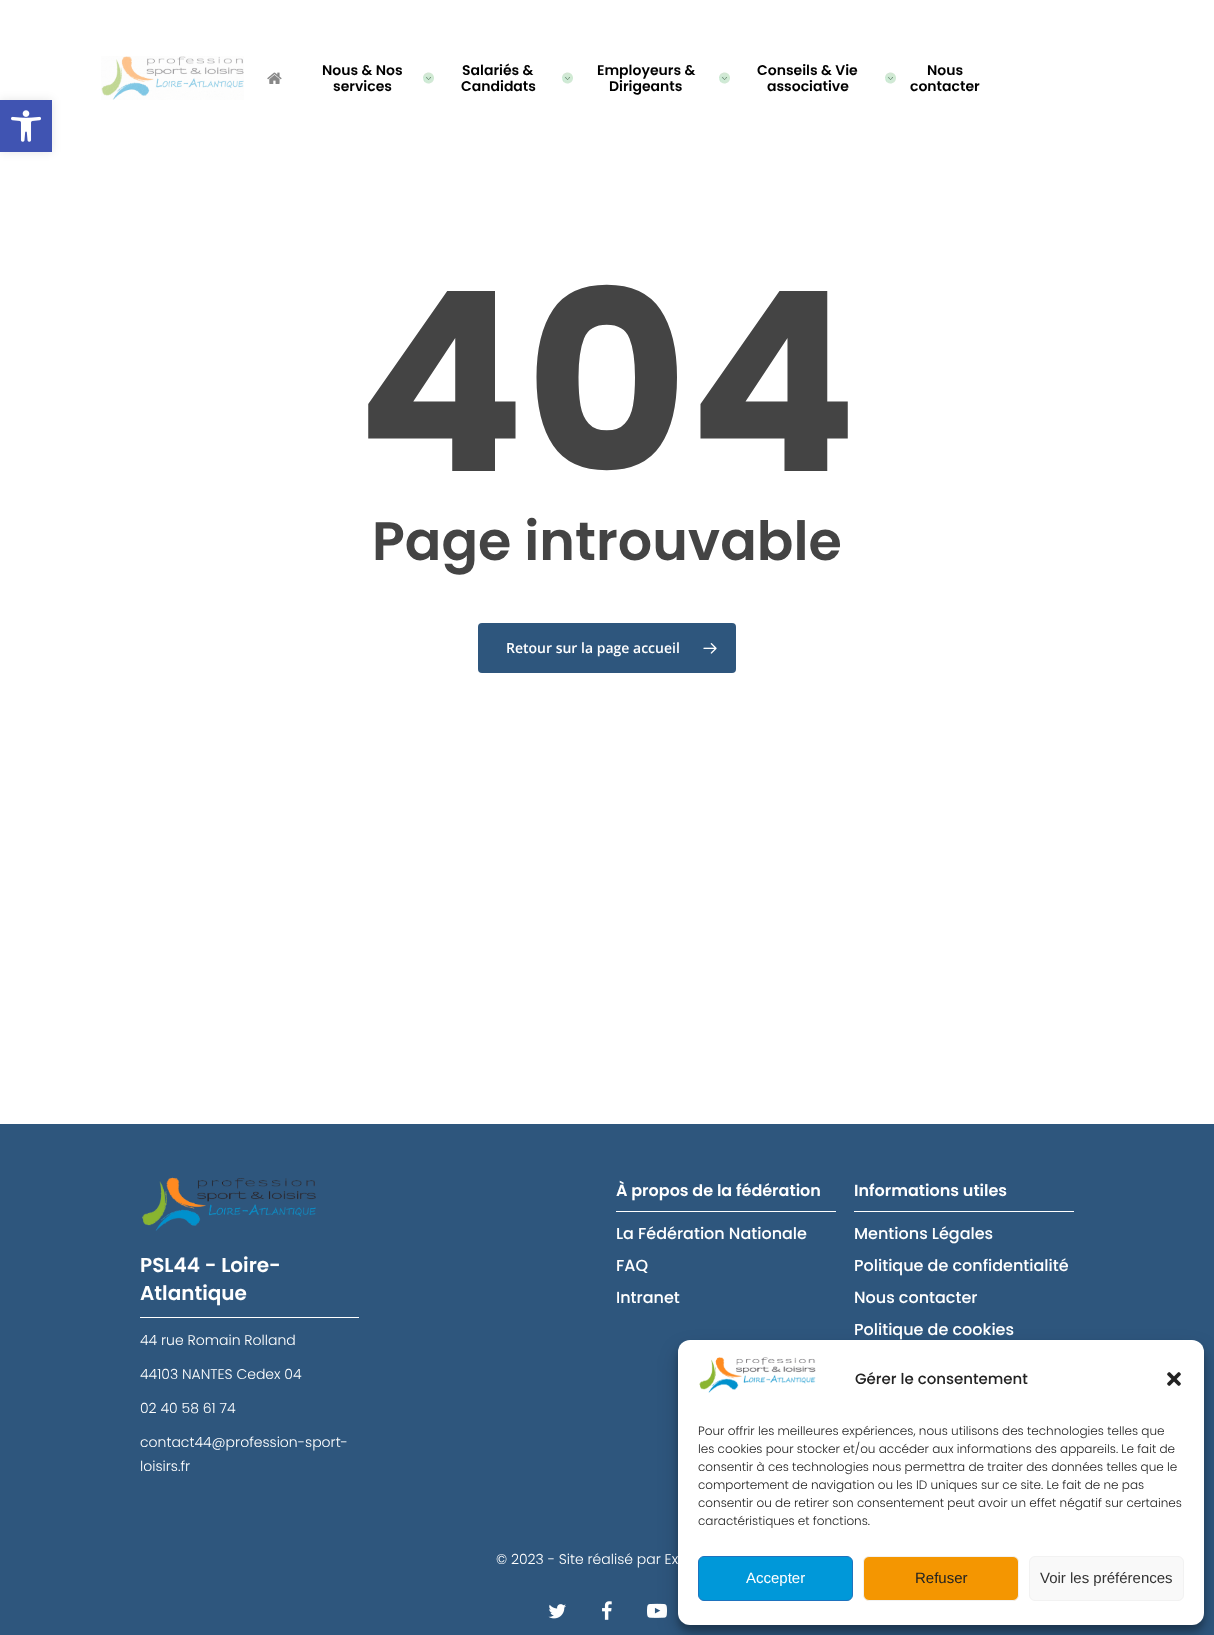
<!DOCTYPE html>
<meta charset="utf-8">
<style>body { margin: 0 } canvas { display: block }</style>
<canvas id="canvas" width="1214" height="1635"></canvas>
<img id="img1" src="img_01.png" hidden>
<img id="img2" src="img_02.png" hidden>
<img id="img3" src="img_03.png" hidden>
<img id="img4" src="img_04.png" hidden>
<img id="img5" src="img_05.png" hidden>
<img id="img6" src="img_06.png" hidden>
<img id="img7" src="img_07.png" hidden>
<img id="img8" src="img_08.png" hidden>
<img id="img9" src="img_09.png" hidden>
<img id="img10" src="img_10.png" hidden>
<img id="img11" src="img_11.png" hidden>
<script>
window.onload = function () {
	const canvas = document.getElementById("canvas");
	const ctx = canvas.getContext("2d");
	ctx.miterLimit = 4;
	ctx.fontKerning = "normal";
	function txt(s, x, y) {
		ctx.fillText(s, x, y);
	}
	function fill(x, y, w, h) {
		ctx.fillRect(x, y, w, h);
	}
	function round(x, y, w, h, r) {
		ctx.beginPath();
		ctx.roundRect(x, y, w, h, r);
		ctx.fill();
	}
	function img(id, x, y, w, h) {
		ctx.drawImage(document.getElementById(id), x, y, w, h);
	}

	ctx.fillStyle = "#FFFFFF";
	fill(0, 0, 1214, 1635);
	ctx.fillStyle = "rgba(0, 0, 0, 0.1)";
	ctx.filter = "blur(5px)";
	ctx.beginPath();
	ctx.rect(0, 100, 52, 52);
	ctx.fill();
	ctx.filter = "none";
	ctx.fillStyle = "#4054B2";
	fill(0, 100, 52, 52);
	img("img1", 11, 110, 30, 32);
	img("img2", 101, 56, 143, 44);
	img("img3", 267, 72, 15, 12);
	img("img4", 423, 72, 11, 12);
	img("img4", 562, 72, 11, 12);
	img("img4", 719, 72, 11, 12);
	img("img4", 885, 72, 11, 12);
	ctx.fillStyle = "#2E567D";
	round(478, 623, 258, 50, 4);
	img("img5", 703, 643, 14, 11);
	fill(0, 1124, 1214, 511);
	img("img6", 142, 1177, 174, 54);
	ctx.fillStyle = "#FFFFFF";
	fill(140, 1317, 219, 1);
	fill(616, 1211, 220, 1);
	fill(854, 1211, 220, 1);
	img("img7", 548, 1604, 18, 15);
	img("img8", 602, 1601, 10, 19);
	img("img9", 647, 1603, 20, 15);
	ctx.fillStyle = "rgba(0, 0, 0, 0.23)";
	ctx.filter = "blur(3px)";
	ctx.beginPath();
	ctx.roundRect(678, 1346, 526, 285, 12);
	ctx.fill();
	ctx.filter = "none";
	ctx.fillStyle = "rgba(0, 0, 0, 0.19)";
	ctx.filter = "blur(10px)";
	ctx.beginPath();
	ctx.roundRect(678, 1350, 526, 285, 12);
	ctx.fill();
	ctx.filter = "none";
	ctx.fillStyle = "#FFFFFF";
	round(678, 1340, 526, 285, 12);
	img("img10", 699, 1357, 117, 36);
	img("img11", 1167, 1372, 14, 14);
	ctx.fillStyle = "#0098D9";
	ctx.beginPath();
	ctx.roundRect(698.5, 1556.5, 154, 44, 5.5);
	ctx.fill();
	ctx.strokeStyle = "#1E73BE";
	ctx.stroke();
	ctx.fillStyle = "#F49601";
	ctx.beginPath();
	ctx.roundRect(863.5, 1556.5, 155, 44, 5.5);
	ctx.fill();
	ctx.strokeStyle = "#F2F2F2";
	ctx.stroke();
	ctx.fillStyle = "#F9F9F9";
	ctx.beginPath();
	ctx.roundRect(1029.5, 1556.5, 154, 44, 5.5);
	ctx.fill();
	ctx.stroke();
	ctx.font = "600 14px Poppins";
	ctx.fillStyle = "#000000";
	txt("Nous & Nos", 322, 75);
	txt("services", 333, 91);
	txt("Salariés &", 462, 75);
	txt("Candidats", 461, 91);
	txt("Employeurs &", 597, 75);
	txt("Dirigeants", 609, 91);
	txt("Conseils & Vie", 757, 75);
	txt("associative", 767, 91);
	txt("Nous", 927, 75);
	txt("contacter", 910, 91);
	ctx.font = "bold 250px Poppins";
	ctx.fillStyle = "#444444";
	txt("404", 356, 471);
	ctx.font = "600 54px Poppins";
	txt("Page introuvable", 372, 560);
	ctx.font = "600 14px Open Sans";
	ctx.fillStyle = "#FFFFFF";
	txt("Retour sur la page accueil", 506, 653);
	ctx.font = "600 20px Poppins";
	txt("PSL44 - Loire-", 140, 1272);
	txt("Atlantique", 140, 1300);
	ctx.font = "300 14px Poppins";
	txt("44 rue Romain Rolland", 140, 1345);
	txt("44103 NANTES Cedex 04", 140, 1379);
	txt("02 40 58 61 74", 140, 1413);
	txt("contact44@profession-sport-", 140, 1447);
	txt("loisirs.fr", 140, 1471);
	ctx.font = "600 16px Poppins";
	txt("À propos de la fédération", 616, 1196);
	ctx.font = "500 16px Poppins";
	txt("La Fédération Nationale", 616, 1239);
	txt("FAQ", 616, 1271);
	txt("Intranet", 616, 1303);
	ctx.font = "600 16px Poppins";
	txt("Informations utiles", 854, 1196);
	ctx.font = "500 16px Poppins";
	txt("Mentions Légales", 854, 1239);
	txt("Politique de confidentialité", 854, 1271);
	txt("Nous contacter", 854, 1303);
	txt("Politique de cookies", 854, 1335);
	ctx.font = "300 14px Poppins";
	txt("© 2023 - Site réalisé par Ex", 496, 1564);
	ctx.font = "500 15px Poppins";
	ctx.fillStyle = "#222222";
	txt("Gérer le consentement", 855, 1384);
	ctx.font = "300 12px Poppins";
	txt("Pour offrir les meilleures expériences, nous utilisons des technologies telles que", 698, 1435);
	txt("les cookies pour stocker et/ou accéder aux informations des appareils. Le fait de", 698, 1453);
	txt("consentir à ces technologies nous permettra de traiter des données telles que le", 698, 1471);
	txt("comportement de navigation ou les ID uniques sur ce site. Le fait de ne pas", 698, 1489);
	txt("consentir ou de retirer son consentement peut avoir un effet négatif sur certaines", 698, 1507);
	txt("caractéristiques et fonctions.", 698, 1525);
	ctx.font = "15px Liberation Sans";
	ctx.fillStyle = "#FFFFFF";
	txt("Accepter", 746, 1583);
	ctx.fillStyle = "#222222";
	txt("Refuser", 915, 1583);
	ctx.fillStyle = "#333333";
	txt("Voir les préférences", 1040, 1583);
};
</script>
